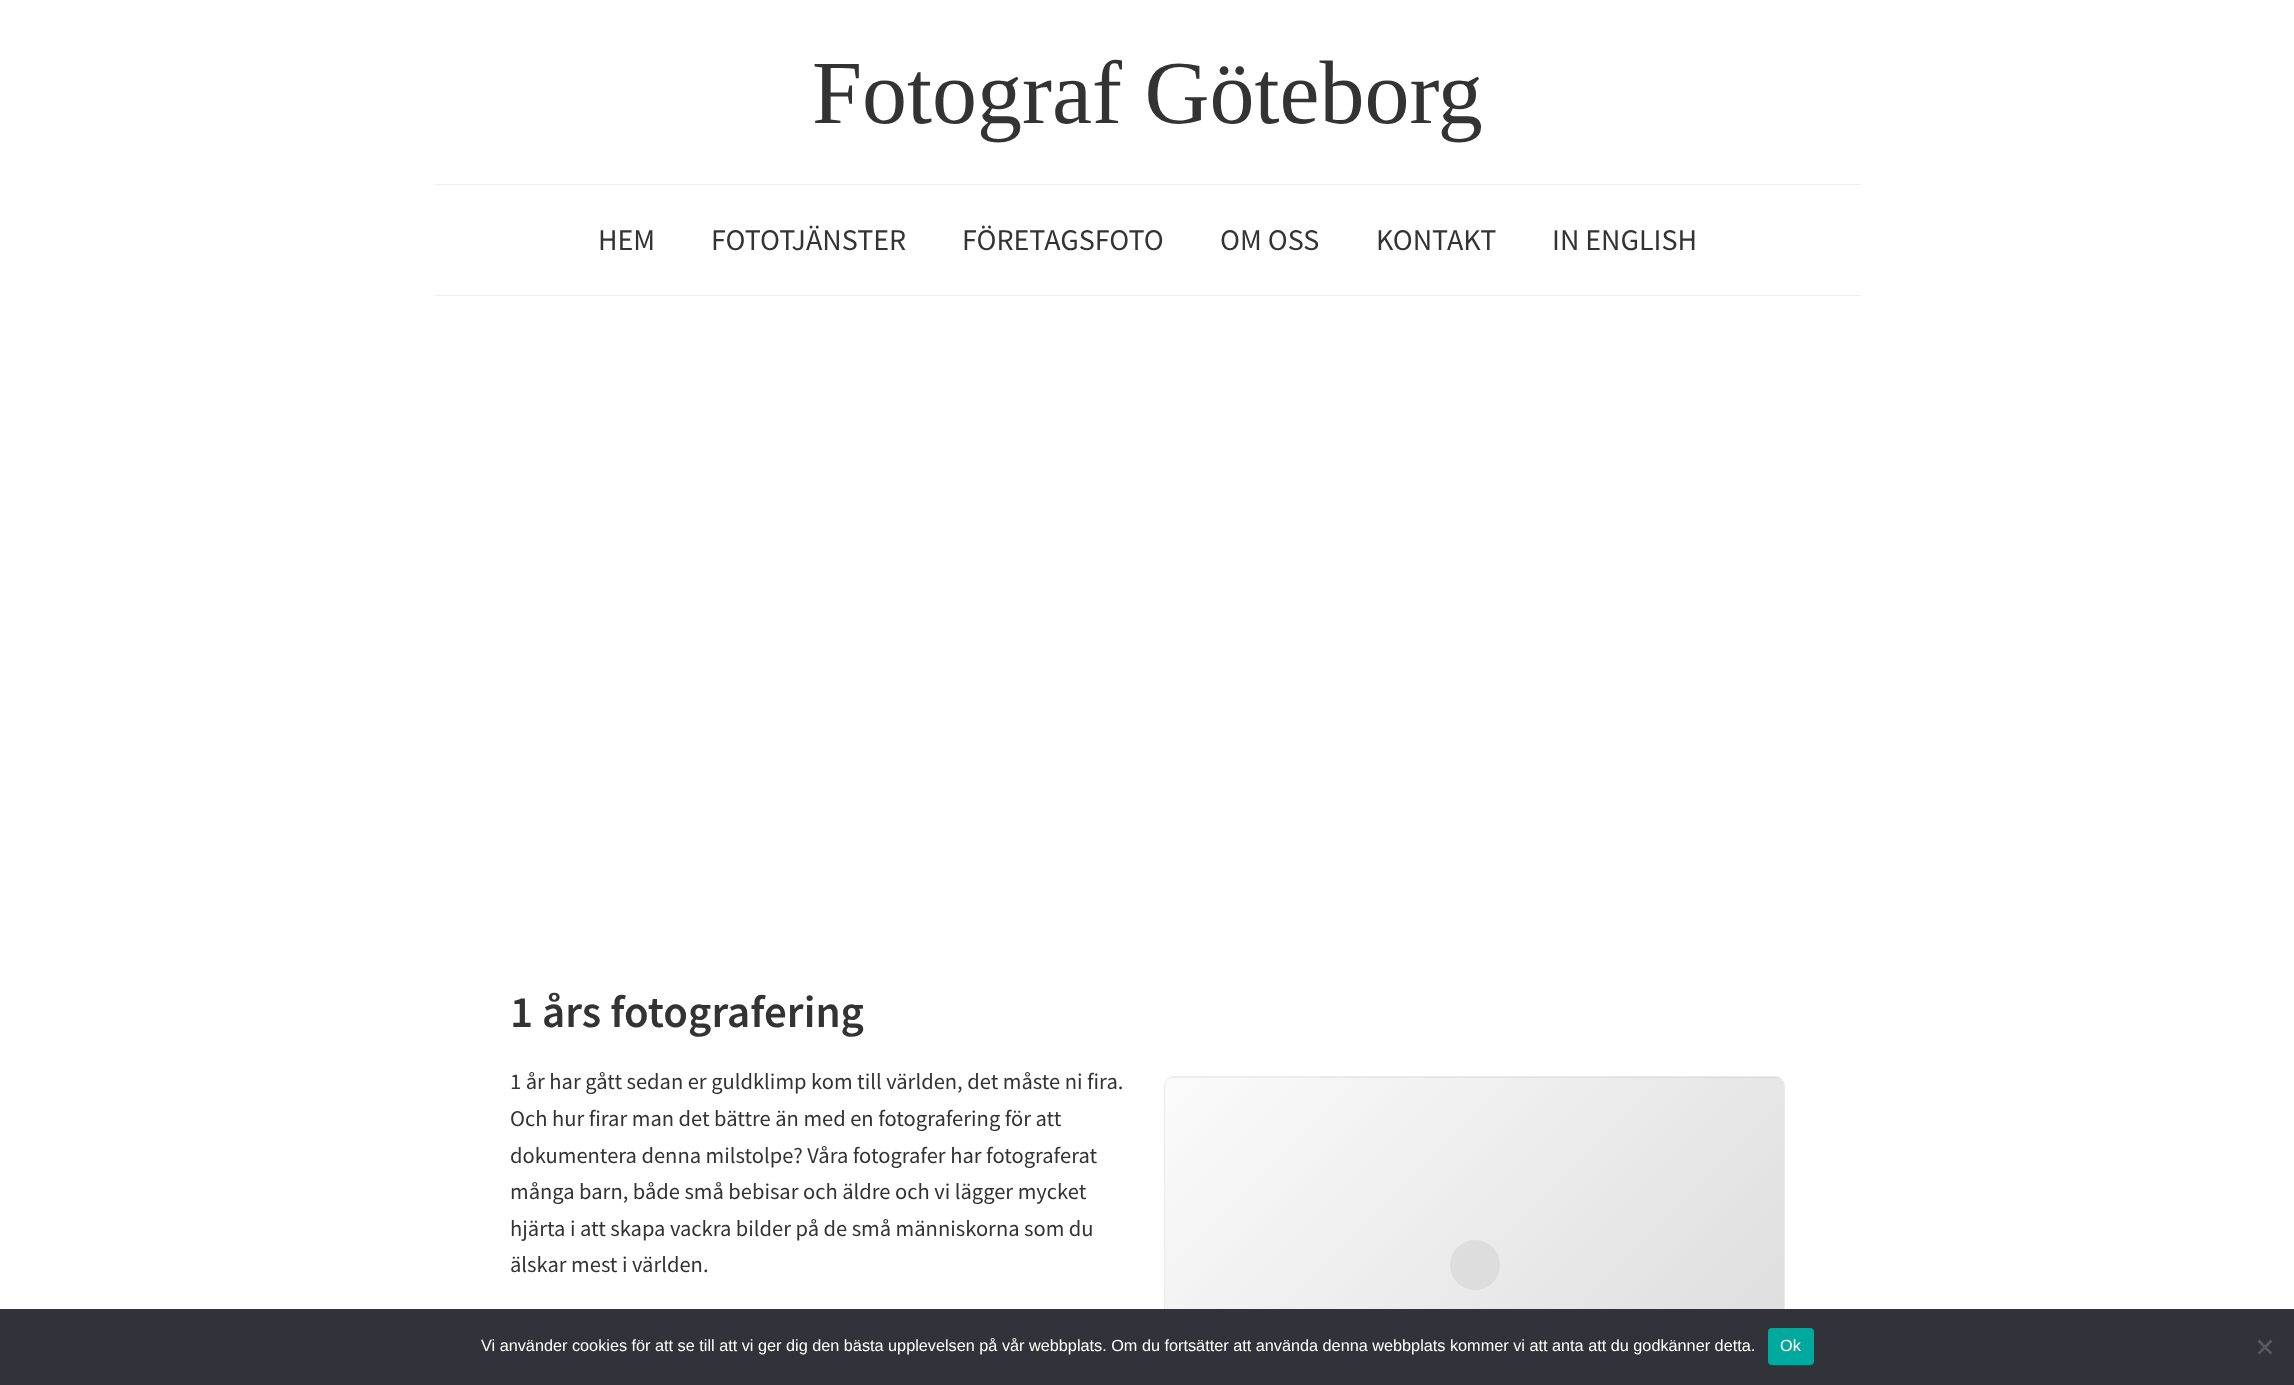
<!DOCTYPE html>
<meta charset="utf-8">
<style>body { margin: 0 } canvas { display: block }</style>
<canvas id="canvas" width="2294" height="1385"></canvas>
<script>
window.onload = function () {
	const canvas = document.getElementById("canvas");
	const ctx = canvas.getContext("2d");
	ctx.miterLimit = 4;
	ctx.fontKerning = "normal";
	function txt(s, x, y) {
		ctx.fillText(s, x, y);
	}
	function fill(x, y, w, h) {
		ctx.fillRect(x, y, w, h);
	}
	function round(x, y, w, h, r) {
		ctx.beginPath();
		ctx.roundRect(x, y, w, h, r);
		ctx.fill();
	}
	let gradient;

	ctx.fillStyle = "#FFFFFF";
	fill(0, 0, 2294, 1385);
	ctx.fillStyle = "#EEEEEE";
	fill(435, 184, 1425, 1);
	fill(435, 295, 1425, 1);
	ctx.save();
	ctx.beginPath();
	ctx.roundRect(1164, 1076, 621, 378, 10);
	ctx.clip();
	gradient = ctx.createLinearGradient(1226, 642, 1723, 1138);
	gradient.addColorStop(0, "#FBFBFB");
	gradient.addColorStop(1, "#DADADA");
	ctx.fillStyle = gradient;
	fill(1165, 1076, 619, 2);
	gradient = ctx.createLinearGradient(1226, 1017, 1723, 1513);
	gradient.addColorStop(0, "#FBFBFB");
	gradient.addColorStop(1, "#DADADA");
	ctx.fillStyle = gradient;
	fill(1165, 1078, 619, 231);
	ctx.restore();
	ctx.beginPath();
	ctx.roundRect(1164.5, 1076.5, 620, 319, 9.5);
	ctx.strokeStyle = "#EBEBEB";
	ctx.stroke();
	ctx.fillStyle = "rgba(208, 208, 208, 0.5)";
	ctx.beginPath();
	ctx.arc(1475, 1265, 25, 0, Math.PI * 2);
	ctx.fill();
	ctx.fillStyle = "#32323A";
	fill(0, 1309, 2294, 76);
	ctx.fillStyle = "#00A99D";
	round(1768, 1328, 46, 37, 4);
	ctx.fillStyle = "#59595D";
	ctx.beginPath();
	ctx.moveTo(2270.5, 1339.5);
	ctx.lineTo(2272.5, 1341.5);
	ctx.lineTo(2259.5, 1354.5);
	ctx.lineTo(2257.5, 1353);
	ctx.closePath();
	ctx.fill();
	ctx.beginPath();
	ctx.moveTo(2257.5, 1341.5);
	ctx.lineTo(2259.5, 1339.5);
	ctx.lineTo(2272.5, 1353);
	ctx.lineTo(2270.5, 1354.5);
	ctx.closePath();
	ctx.fill();
	ctx.font = "90px Liberation Serif";
	ctx.fillStyle = "#333333";
	txt("Fotograf Göteborg", 812, 123);
	ctx.font = "30px Source Sans Pro";
	txt("HEM", 598, 250);
	txt("FOTOTJÄNSTER", 711, 250);
	txt("FÖRETAGSFOTO", 962, 250);
	txt("OM OSS", 1220, 250);
	txt("KONTAKT", 1376, 250);
	txt("IN ENGLISH", 1552, 250);
	ctx.font = "600 45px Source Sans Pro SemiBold";
	txt("1 års fotografering", 510, 1027);
	ctx.font = "22.5px Source Sans Pro";
	txt("1 år har gått sedan er guldklimp kom till världen, det måste ni fira.", 510, 1089);
	txt("Och hur firar man det bättre än med en fotografering för att", 510, 1126);
	txt("dokumentera denna milstolpe? Våra fotografer har fotograferat", 510, 1163);
	txt("många barn, både små bebisar och äldre och vi lägger mycket", 510, 1199);
	txt("hjärta i att skapa vackra bilder på de små människorna som du", 510, 1236);
	txt("älskar mest i världen.", 510, 1272);
	ctx.font = "16.25px Liberation Sans";
	ctx.fillStyle = "#FFFFFF";
	txt("Vi använder cookies för att se till att vi ger dig den bästa upplevelsen på vår webbplats. Om du fortsätter att använda denna webbplats kommer vi att anta att du godkänner detta.", 481, 1351);
	txt("Ok", 1780, 1351);
};
</script>
